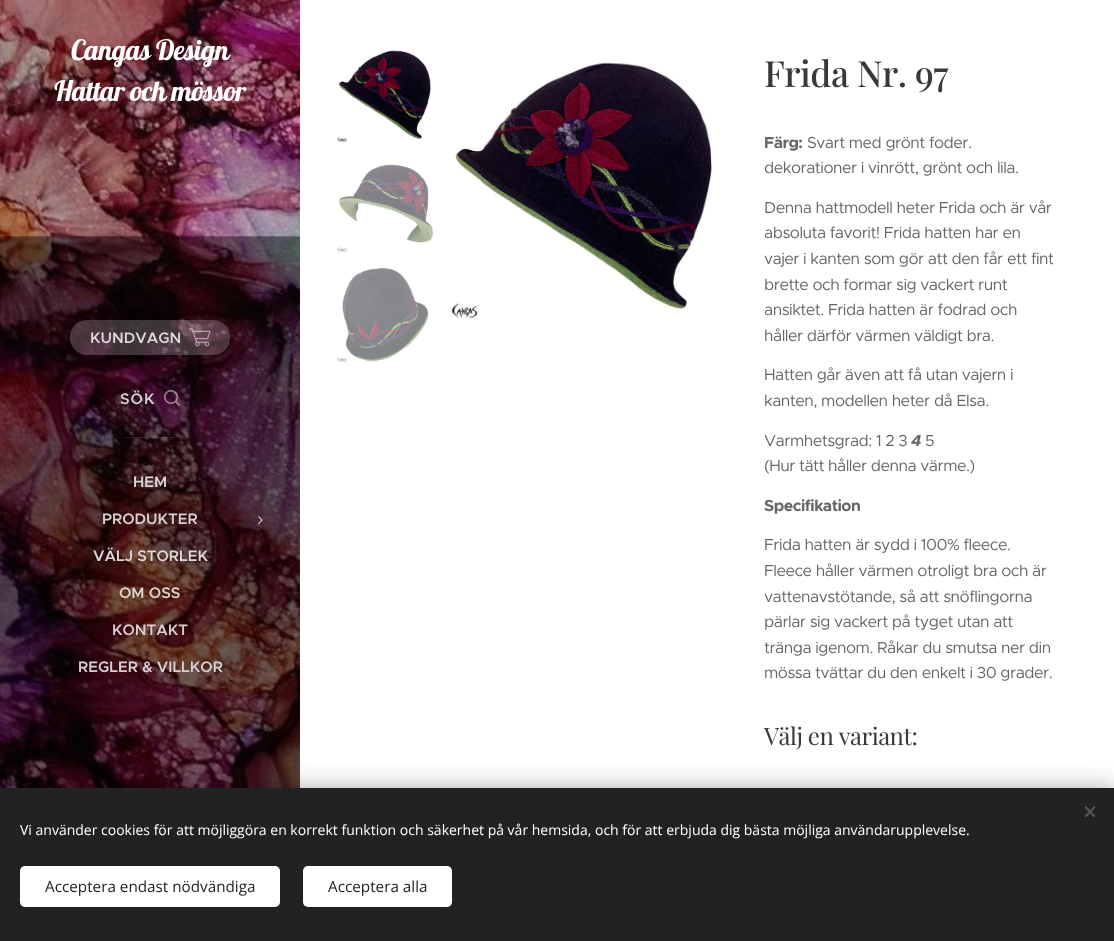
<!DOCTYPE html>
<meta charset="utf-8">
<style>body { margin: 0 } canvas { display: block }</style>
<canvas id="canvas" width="1114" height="941"></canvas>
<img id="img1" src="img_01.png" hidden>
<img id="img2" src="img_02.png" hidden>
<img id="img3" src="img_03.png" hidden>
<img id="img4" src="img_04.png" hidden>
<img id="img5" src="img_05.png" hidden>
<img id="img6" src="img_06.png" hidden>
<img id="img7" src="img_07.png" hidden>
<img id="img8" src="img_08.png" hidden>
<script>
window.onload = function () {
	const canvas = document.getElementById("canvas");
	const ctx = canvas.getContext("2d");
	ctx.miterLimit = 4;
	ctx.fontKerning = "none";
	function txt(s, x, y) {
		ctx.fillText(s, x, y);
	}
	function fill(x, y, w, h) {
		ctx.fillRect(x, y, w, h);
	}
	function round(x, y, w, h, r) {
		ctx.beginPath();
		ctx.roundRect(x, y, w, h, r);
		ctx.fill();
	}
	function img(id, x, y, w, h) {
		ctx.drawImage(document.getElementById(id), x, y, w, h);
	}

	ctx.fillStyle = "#FFFFFF";
	fill(0, 0, 1114, 941);
	img("img1", 0, 0, 300, 788);
	ctx.save();
	ctx.beginPath();
	ctx.moveTo(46, 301);
	ctx.lineTo(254, 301);
	ctx.lineTo(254, 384);
	ctx.lineTo(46, 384);
	ctx.closePath();
	ctx.moveTo(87, 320);
	ctx.lineTo(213, 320);
	ctx.bezierCurveTo(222.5, 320, 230, 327.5, 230, 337);
	ctx.lineTo(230, 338);
	ctx.bezierCurveTo(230, 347.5, 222.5, 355, 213, 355);
	ctx.lineTo(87, 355);
	ctx.bezierCurveTo(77.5, 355, 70, 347.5, 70, 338);
	ctx.lineTo(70, 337);
	ctx.bezierCurveTo(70, 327.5, 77.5, 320, 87, 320);
	ctx.closePath();
	ctx.clip("evenodd");
	ctx.fillStyle = "rgba(0, 0, 0, 0.2)";
	ctx.filter = "blur(7.5px)";
	ctx.beginPath();
	ctx.roundRect(70, 325, 160, 35, 17);
	ctx.fill();
	ctx.filter = "none";
	ctx.restore();
	ctx.fillStyle = "rgba(255, 255, 255, 0.2)";
	round(70, 320, 160, 35, 17);
	img("img2", 189, 328, 22, 19);
	img("img3", 164, 390, 16, 16);
	ctx.fillStyle = "rgba(255, 255, 255, 0.1)";
	fill(125, 437, 50, 1);
	img("img4", 258, 516, 5, 8);
	img("img5", 337, 50, 94, 93);
	img("img6", 337, 164, 96, 89);
	img("img7", 337, 268, 92, 95);
	img("img8", 450, 62, 262, 257);
	ctx.fillStyle = "rgba(0, 0, 0, 0.33)";
	ctx.filter = "blur(12.5px)";
	ctx.beginPath();
	ctx.rect(0, 788, 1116, 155);
	ctx.fill();
	ctx.filter = "none";
	ctx.fillStyle = "#222222";
	fill(0, 788, 1114, 153);
	ctx.fillStyle = "#555555";
	ctx.beginPath();
	ctx.moveTo(1084.5, 816);
	ctx.lineTo(1094, 806);
	ctx.lineTo(1095.5, 807.5);
	ctx.lineTo(1086, 817.5);
	ctx.closePath();
	ctx.fill();
	ctx.beginPath();
	ctx.moveTo(1086, 806);
	ctx.lineTo(1095.5, 816);
	ctx.lineTo(1094, 817.5);
	ctx.lineTo(1084.5, 807.5);
	ctx.closePath();
	ctx.fill();
	ctx.fillStyle = "#FFFFFF";
	round(20, 866, 260, 41, 5);
	round(303, 866, 149, 41, 5);
	ctx.letterSpacing = "-0.5px";
	ctx.font = "28px Lobster";
	txt("Cangas Design", 71, 60);
	txt("Hattar och mössor", 54, 101);
	ctx.letterSpacing = "0px";
	ctx.font = "600 15.25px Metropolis";
	ctx.fillStyle = "#DAD7D8";
	txt("KUNDVAGN", 90, 343);
	ctx.letterSpacing = "1px";
	ctx.fillStyle = "#D6CFD3";
	txt("SÖK", 120, 404);
	ctx.letterSpacing = "0px";
	ctx.fillStyle = "#DAD7D8";
	txt("HEM", 133, 487);
	ctx.fillStyle = "#D6CFD3";
	txt("PRODUKTER", 102, 524);
	ctx.fillStyle = "#DAD7D8";
	txt("VÄLJ STORLEK", 93, 561);
	ctx.fillStyle = "#DDD4D1";
	txt("OM OSS", 119, 598);
	ctx.fillStyle = "#D6CFD3";
	txt("KONTAKT", 112, 635);
	txt("REGLER & VILLKOR", 78, 672);
	ctx.letterSpacing = "-0.5px";
	ctx.font = "500 36px Playfair Display";
	ctx.fillStyle = "#393939";
	txt("Frida Nr. 97", 764, 87);
	ctx.font = "bold 16px Metropolis";
	ctx.fillStyle = "#666666";
	txt("Färg:", 764, 148);
	ctx.font = "16px Metropolis";
	txt("Svart med grönt foder.", 807, 148);
	txt("dekorationer i vinrött, grönt och lila.", 764, 173);
	txt("Denna hattmodell heter Frida och är vår", 764, 213);
	txt("absoluta favorit! Frida hatten har en", 764, 238);
	txt("vajer i kanten som gör att den får ett fint", 764, 264);
	txt("brette och formar sig vackert runt", 764, 290);
	txt("ansiktet. Frida hatten är fodrad och", 764, 315);
	txt("håller därför värmen väldigt bra.", 764, 341);
	txt("Hatten går även att få utan vajern i", 764, 380);
	txt("kanten, modellen heter då Elsa.", 764, 406);
	txt("Varmhetsgrad: 1 2 3", 764, 446);
	ctx.font = "italic bold 16px Metropolis";
	txt("4", 911, 446);
	ctx.font = "16px Metropolis";
	txt("5", 925, 446);
	txt("(Hur tätt håller denna värme.)", 764, 471);
	ctx.font = "bold 16px Metropolis";
	txt("Specifikation", 764, 511);
	ctx.font = "16px Metropolis";
	txt("Frida hatten är sydd i 100% fleece.", 764, 550);
	txt("Fleece håller värmen otroligt bra och är", 764, 576);
	txt("vattenavstötande, så att snöflingorna", 764, 602);
	txt("pärlar sig vackert på tyget utan att", 764, 627);
	txt("tränga igenom. Råkar du smutsa ner din", 764, 653);
	txt("mössa tvättar du den enkelt i 30 grader.", 764, 678);
	ctx.font = "24px Playfair Display";
	ctx.fillStyle = "#393939";
	txt("Välj en variant:", 764, 745);
	ctx.letterSpacing = "0px";
	ctx.font = "14px Open Sans";
	ctx.fillStyle = "#FFFFFF";
	txt("Vi använder cookies för att möjliggöra en korrekt funktion och säkerhet på vår hemsida, och för att erbjuda dig bästa möjliga användarupplevelse.", 20, 835);
	ctx.font = "15.25px Open Sans";
	ctx.fillStyle = "#222222";
	txt("Acceptera endast nödvändiga", 45, 892);
	txt("Acceptera alla", 328, 892);
};
</script>
